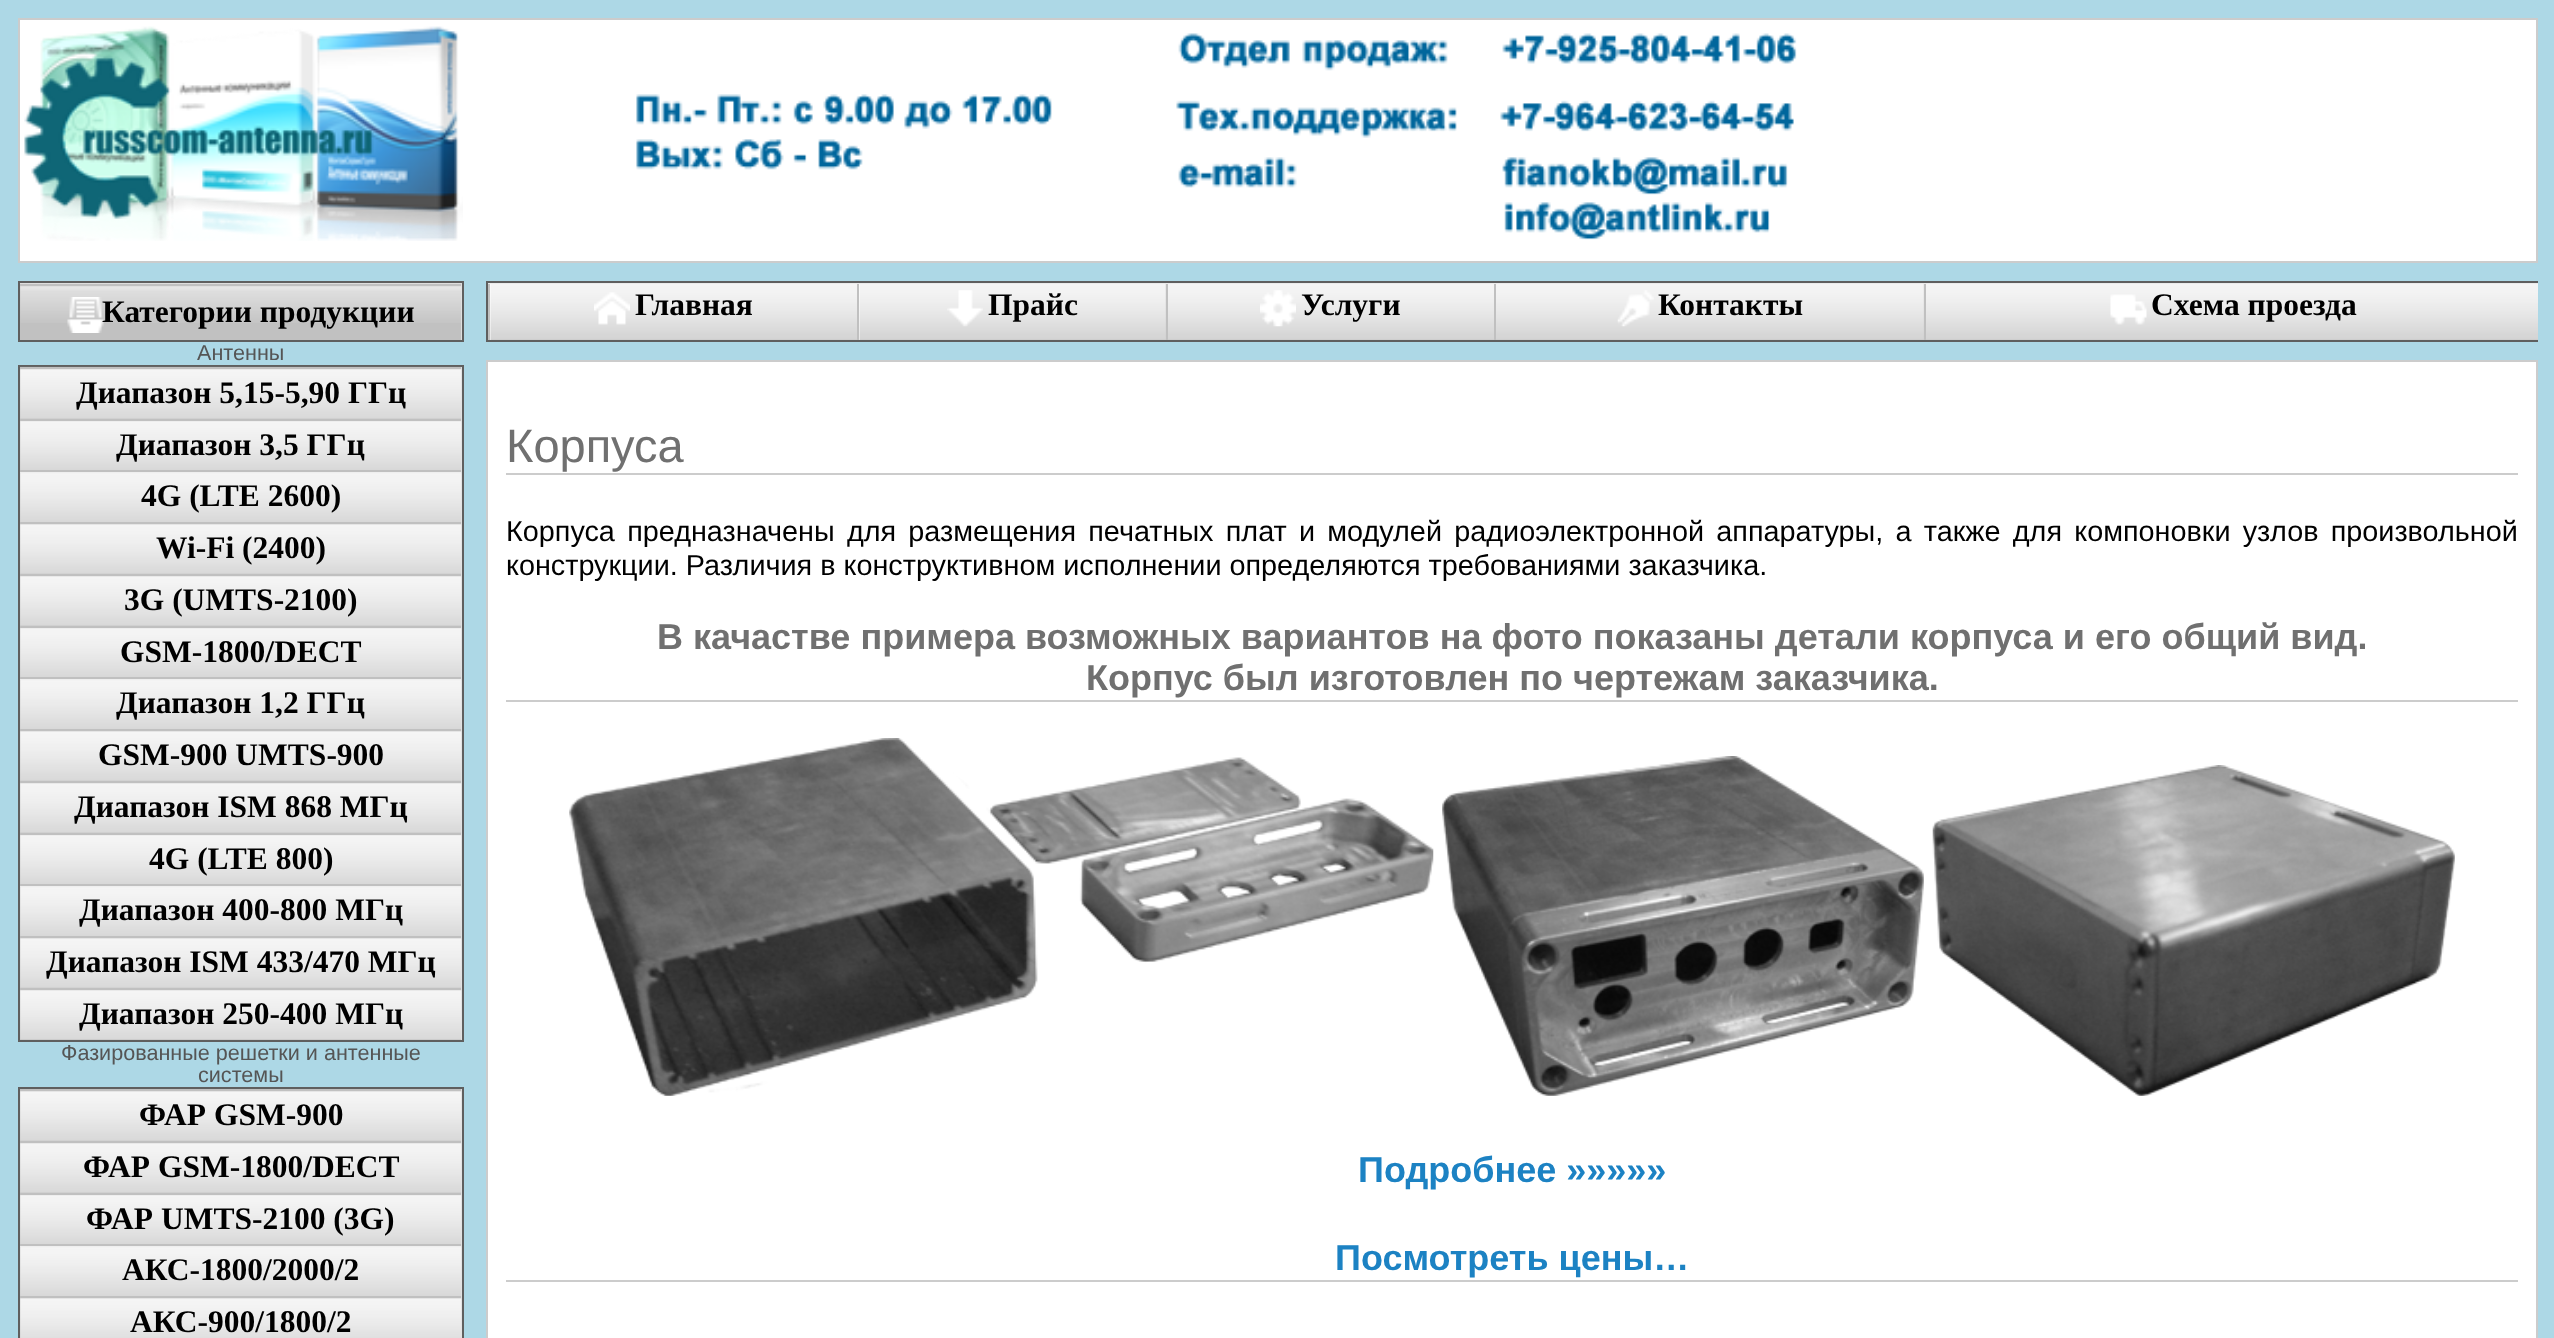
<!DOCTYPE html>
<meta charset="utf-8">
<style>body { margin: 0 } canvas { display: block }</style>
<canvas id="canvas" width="2554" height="1338"></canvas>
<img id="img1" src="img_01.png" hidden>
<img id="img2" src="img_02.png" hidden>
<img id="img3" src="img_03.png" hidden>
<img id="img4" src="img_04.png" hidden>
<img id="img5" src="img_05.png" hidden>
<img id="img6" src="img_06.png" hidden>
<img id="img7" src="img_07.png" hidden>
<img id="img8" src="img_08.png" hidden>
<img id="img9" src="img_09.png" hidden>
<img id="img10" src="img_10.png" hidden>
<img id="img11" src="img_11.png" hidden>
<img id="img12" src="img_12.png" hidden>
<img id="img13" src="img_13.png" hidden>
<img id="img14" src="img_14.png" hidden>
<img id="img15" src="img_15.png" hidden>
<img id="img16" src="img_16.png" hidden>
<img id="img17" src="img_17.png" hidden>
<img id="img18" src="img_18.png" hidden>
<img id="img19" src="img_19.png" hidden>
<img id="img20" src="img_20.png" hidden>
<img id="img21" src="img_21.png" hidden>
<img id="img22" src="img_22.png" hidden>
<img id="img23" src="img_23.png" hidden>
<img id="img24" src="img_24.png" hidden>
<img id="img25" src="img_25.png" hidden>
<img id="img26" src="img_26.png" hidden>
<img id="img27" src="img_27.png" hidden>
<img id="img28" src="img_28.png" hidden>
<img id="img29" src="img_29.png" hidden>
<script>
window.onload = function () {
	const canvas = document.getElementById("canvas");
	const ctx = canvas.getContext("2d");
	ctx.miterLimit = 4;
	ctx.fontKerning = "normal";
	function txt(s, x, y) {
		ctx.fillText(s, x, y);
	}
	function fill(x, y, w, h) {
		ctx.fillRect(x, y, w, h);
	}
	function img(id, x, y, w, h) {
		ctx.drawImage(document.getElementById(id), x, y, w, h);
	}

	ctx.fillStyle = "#ADD8E6";
	fill(0, 0, 2554, 1338);
	ctx.fillStyle = "#FFFFFF";
	ctx.beginPath();
	ctx.rect(19, 19, 2518, 243);
	ctx.fill();
	ctx.strokeStyle = "#CCCCCC";
	ctx.lineWidth = 2;
	ctx.stroke();
	img("img1", 24, 26, 439, 215);
	img("img2", 636, 33, 1161, 207);
	ctx.fillStyle = "#DEDEDE";
	ctx.beginPath();
	ctx.rect(19, 282, 444, 59);
	ctx.fill();
	ctx.strokeStyle = "#5F5F5F";
	ctx.stroke();
	ctx.fillStyle = "#C1C1C1";
	fill(20, 286, 441, 54);
	img("img3", 20, 285, 442, 38);
	ctx.fillStyle = "#C0C0C0";
	fill(20, 284, 441, 2);
	img("img4", 67, 297, 37, 36);
	ctx.fillStyle = "#DEDEDE";
	ctx.beginPath();
	ctx.rect(19, 366, 444, 675);
	ctx.fill();
	ctx.stroke();
	ctx.fillStyle = "#C1C1C1";
	fill(20, 369, 441, 50);
	img("img5", 20, 366, 442, 53);
	ctx.fillStyle = "#C0C0C0";
	fill(20, 367, 441, 2);
	ctx.fillStyle = "#C1C1C1";
	fill(20, 421, 441, 49);
	img("img6", 20, 418, 442, 52);
	ctx.fillStyle = "#C0C0C0";
	fill(20, 419, 441, 2);
	ctx.fillStyle = "#C1C1C1";
	fill(20, 473, 441, 49);
	img("img7", 20, 470, 442, 52);
	ctx.fillStyle = "#C0C0C0";
	fill(20, 470, 441, 2);
	ctx.fillStyle = "#C1C1C1";
	fill(20, 524, 441, 50);
	img("img8", 20, 522, 442, 52);
	ctx.fillStyle = "#C0C0C0";
	fill(20, 522, 441, 2);
	ctx.fillStyle = "#C1C1C1";
	fill(20, 576, 441, 50);
	img("img9", 20, 574, 442, 52);
	ctx.fillStyle = "#C0C0C0";
	fill(20, 574, 441, 2);
	ctx.fillStyle = "#C1C1C1";
	fill(20, 628, 441, 49);
	img("img6", 20, 625, 442, 52);
	ctx.fillStyle = "#C0C0C0";
	fill(20, 626, 441, 2);
	ctx.fillStyle = "#C1C1C1";
	fill(20, 680, 441, 49);
	img("img7", 20, 677, 442, 52);
	ctx.fillStyle = "#C0C0C0";
	fill(20, 677, 441, 2);
	ctx.fillStyle = "#C1C1C1";
	fill(20, 731, 441, 50);
	img("img10", 20, 729, 442, 52);
	ctx.fillStyle = "#C0C0C0";
	fill(20, 729, 441, 2);
	ctx.fillStyle = "#C1C1C1";
	fill(20, 783, 441, 50);
	img("img11", 20, 781, 442, 52);
	ctx.fillStyle = "#C0C0C0";
	fill(20, 781, 441, 2);
	ctx.fillStyle = "#C1C1C1";
	fill(20, 835, 441, 49);
	img("img6", 20, 832, 442, 52);
	ctx.fillStyle = "#C0C0C0";
	fill(20, 833, 441, 2);
	ctx.fillStyle = "#C1C1C1";
	fill(20, 887, 441, 49);
	img("img7", 20, 884, 442, 52);
	ctx.fillStyle = "#C0C0C0";
	fill(20, 884, 441, 2);
	ctx.fillStyle = "#C1C1C1";
	fill(20, 938, 441, 50);
	img("img12", 20, 936, 442, 52);
	ctx.fillStyle = "#C0C0C0";
	fill(20, 936, 441, 2);
	ctx.fillStyle = "#C1C1C1";
	fill(20, 990, 441, 50);
	img("img13", 20, 988, 442, 52);
	ctx.fillStyle = "#C0C0C0";
	fill(20, 988, 441, 2);
	ctx.fillStyle = "#DEDEDE";
	ctx.beginPath();
	ctx.rect(19, 1088, 444, 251);
	ctx.fill();
	ctx.stroke();
	ctx.fillStyle = "#C1C1C1";
	fill(20, 1091, 441, 50);
	img("img12", 20, 1089, 442, 52);
	ctx.fillStyle = "#C0C0C0";
	fill(20, 1089, 441, 2);
	ctx.fillStyle = "#C1C1C1";
	fill(20, 1143, 441, 50);
	img("img11", 20, 1141, 442, 52);
	ctx.fillStyle = "#C0C0C0";
	fill(20, 1141, 441, 2);
	ctx.fillStyle = "#C1C1C1";
	fill(20, 1195, 441, 49);
	img("img14", 20, 1192, 442, 52);
	ctx.fillStyle = "#C0C0C0";
	fill(20, 1193, 441, 2);
	ctx.fillStyle = "#C1C1C1";
	fill(20, 1247, 441, 49);
	img("img15", 20, 1244, 442, 52);
	ctx.fillStyle = "#C0C0C0";
	fill(20, 1244, 441, 2);
	ctx.fillStyle = "#C1C1C1";
	fill(20, 1298, 441, 40);
	img("img16", 20, 1296, 442, 42);
	ctx.fillStyle = "#C0C0C0";
	fill(20, 1296, 441, 2);
	ctx.fillStyle = "#DEDEDE";
	fill(488, 283, 2050, 57);
	ctx.save();
	ctx.beginPath();
	ctx.rect(18, 18, 2520, 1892);
	ctx.clip();
	ctx.strokeRect(487, 282, 2055, 59);
	ctx.restore();
	ctx.fillStyle = "#C1C1C1";
	fill(491, 284, 366, 56);
	img("img17", 488, 283, 370, 57);
	ctx.fillStyle = "#C0C0C0";
	fill(488, 284, 2, 56);
	img("img18", 594, 292, 36, 33);
	ctx.fillStyle = "#C1C1C1";
	fill(860, 284, 306, 56);
	img("img19", 857, 283, 309, 57);
	ctx.fillStyle = "#C0C0C0";
	fill(857, 284, 2, 56);
	img("img20", 947, 290, 36, 37);
	ctx.fillStyle = "#C1C1C1";
	fill(1168, 284, 326, 56);
	img("img21", 1165, 283, 329, 57);
	ctx.fillStyle = "#C0C0C0";
	fill(1166, 284, 2, 56);
	img("img22", 1260, 290, 36, 37);
	ctx.fillStyle = "#C1C1C1";
	fill(1496, 284, 428, 56);
	img("img23", 1494, 283, 430, 57);
	ctx.fillStyle = "#C0C0C0";
	fill(1494, 284, 2, 56);
	img("img24", 1617, 290, 37, 37);
	ctx.fillStyle = "#C1C1C1";
	fill(1926, 284, 612, 56);
	img("img25", 1923, 283, 615, 57);
	ctx.fillStyle = "#C0C0C0";
	fill(1924, 284, 2, 56);
	img("img26", 2110, 294, 37, 31);
	ctx.fillStyle = "#FFFFFF";
	ctx.beginPath();
	ctx.rect(487, 361, 2050, 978);
	ctx.fill();
	ctx.strokeStyle = "#CCCCCC";
	ctx.stroke();
	ctx.fillStyle = "#CCCCCC";
	fill(506, 473, 2012, 2);
	fill(506, 700, 2012, 2);
	img("img27", 569, 738, 865, 358);
	img("img28", 1442, 756, 482, 340);
	img("img29", 1932, 765, 523, 331);
	fill(506, 1280, 2012, 2);
	ctx.font = "bold 31.5px Liberation Serif";
	ctx.fillStyle = "#000000";
	txt("Категории продукции", 102, 322);
	ctx.font = "21.6px Liberation Sans";
	ctx.fillStyle = "#555555";
	txt("Антенны", 197, 360);
	ctx.font = "bold 31.5px Liberation Serif";
	ctx.fillStyle = "#000000";
	txt("Диапазон 5,15-5,90 ГГц", 76, 403);
	txt("Диапазон 3,5 ГГц", 116, 455);
	txt("4G (LTE 2600)", 141, 506);
	txt("Wi-Fi (2400)", 156, 558);
	txt("3G (UMTS-2100)", 124, 610);
	txt("GSM-1800/DECT", 120, 662);
	txt("Диапазон 1,2 ГГц", 116, 713);
	txt("GSM-900 UMTS-900", 98, 765);
	txt("Диапазон ISM 868 МГц", 74, 817);
	txt("4G (LTE 800)", 149, 869);
	txt("Диапазон 400-800 МГц", 79, 920);
	txt("Диапазон ISM 433/470 МГц", 46, 972);
	txt("Диапазон 250-400 МГц", 79, 1024);
	ctx.font = "21.6px Liberation Sans";
	ctx.fillStyle = "#555555";
	txt("Фазированные решетки и антенные", 61, 1060);
	txt("системы", 198, 1082);
	ctx.font = "bold 31.5px Liberation Serif";
	ctx.fillStyle = "#000000";
	txt("ФАР GSM-900", 139, 1125);
	txt("ФАР GSM-1800/DECT", 83, 1177);
	txt("ФАР UMTS-2100 (3G)", 86, 1229);
	txt("АКС-1800/2000/2", 122, 1280);
	txt("АКС-900/1800/2", 130, 1332);
	txt("Главная", 635, 315);
	txt("Прайс", 988, 315);
	txt("Услуги", 1301, 315);
	txt("Контакты", 1658, 315);
	txt("Схема проезда", 2151, 315);
	ctx.font = "47px Liberation Sans";
	ctx.fillStyle = "#707070";
	txt("Корпуса", 506, 462);
	ctx.wordSpacing = "4.25px";
	ctx.font = "28.8px Liberation Sans";
	ctx.fillStyle = "#000000";
	txt("Корпуса предназначены для размещения печатных плат и модулей радиоэлектронной аппаратуры, а также для компоновки узлов произвольной", 506, 541);
	ctx.wordSpacing = "0px";
	txt("конструкции. Различия в конструктивном исполнении определяются требованиями заказчика.", 506, 575);
	ctx.font = "bold 36px Liberation Sans";
	ctx.fillStyle = "#707070";
	txt("В качастве примера возможных вариантов на фото показаны детали корпуса и его общий вид.", 657, 649);
	txt("Корпус был изготовлен по чертежам заказчика.", 1086, 690);
	ctx.fillStyle = "#1C82C3";
	txt("Подробнее »»»»»", 1358, 1182);
	txt("Посмотреть цены…", 1335, 1270);
};
</script>
